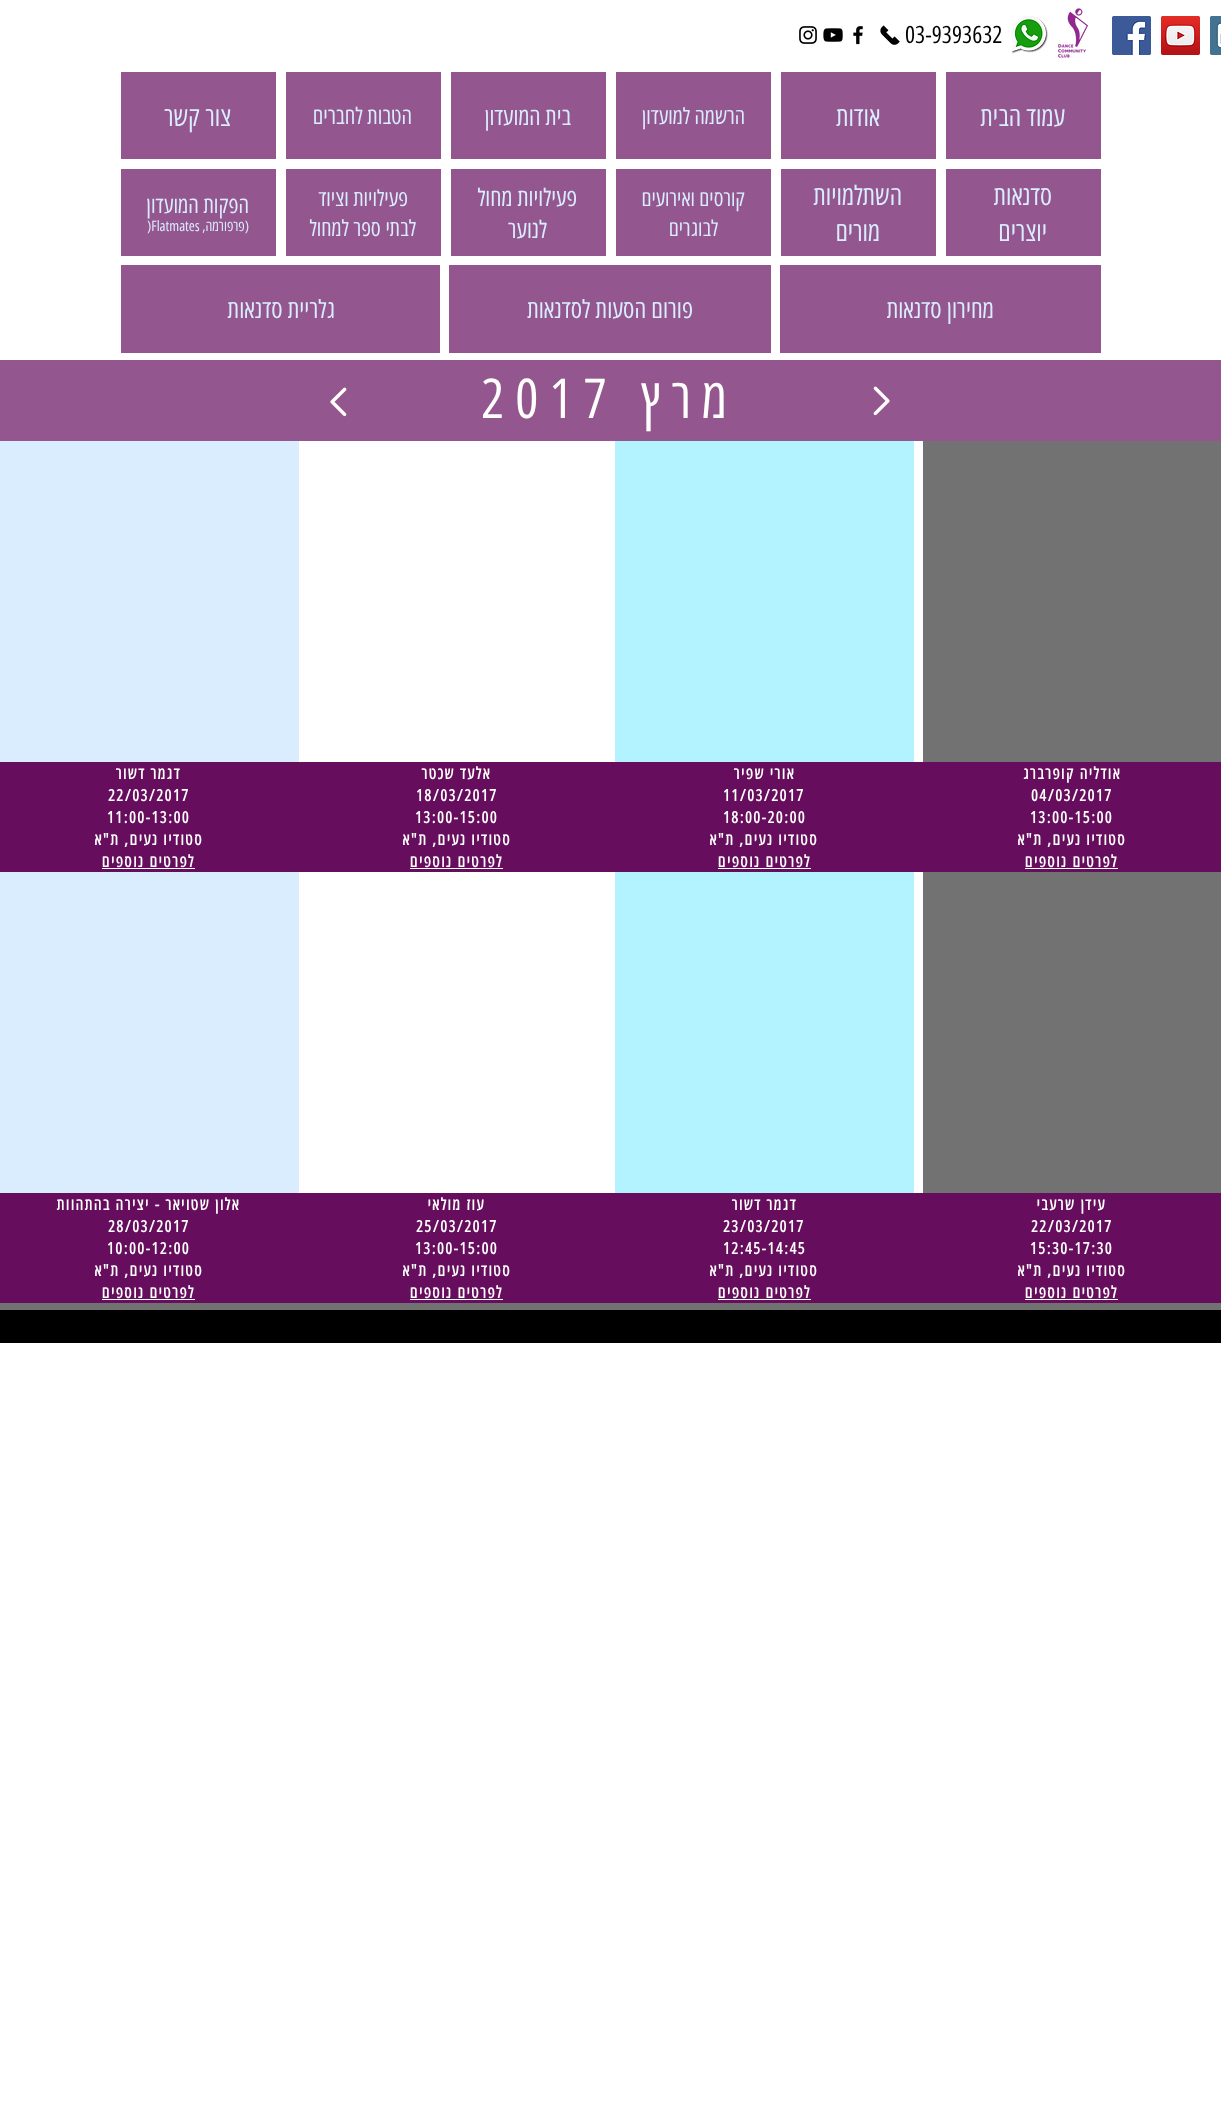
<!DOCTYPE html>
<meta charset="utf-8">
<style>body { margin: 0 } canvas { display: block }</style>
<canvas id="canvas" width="1221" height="2103"></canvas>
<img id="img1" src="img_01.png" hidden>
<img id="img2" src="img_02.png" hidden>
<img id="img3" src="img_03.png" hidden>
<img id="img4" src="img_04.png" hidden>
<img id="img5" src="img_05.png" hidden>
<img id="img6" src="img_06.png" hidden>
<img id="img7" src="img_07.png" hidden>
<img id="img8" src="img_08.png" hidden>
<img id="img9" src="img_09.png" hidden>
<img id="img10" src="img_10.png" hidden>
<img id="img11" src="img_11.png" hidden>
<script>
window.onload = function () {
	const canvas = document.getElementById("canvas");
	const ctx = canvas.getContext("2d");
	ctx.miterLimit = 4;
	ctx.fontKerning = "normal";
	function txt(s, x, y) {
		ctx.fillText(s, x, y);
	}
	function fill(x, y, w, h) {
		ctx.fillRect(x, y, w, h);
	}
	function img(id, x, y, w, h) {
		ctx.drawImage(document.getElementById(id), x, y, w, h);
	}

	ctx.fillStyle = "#FFFFFF";
	fill(0, 0, 1221, 2103);
	img("img1", 1210, 16, 11, 39);
	img("img2", 1161, 16, 39, 39);
	img("img3", 1112, 16, 39, 39);
	img("img4", 1058, 8, 30, 50);
	img("img5", 1011, 16, 37, 38);
	img("img6", 880, 25, 20, 20);
	img("img7", 853, 25, 10, 20);
	img("img8", 823, 28, 20, 14);
	img("img9", 799, 26, 18, 18);
	ctx.fillStyle = "#94568E";
	fill(946, 72, 155, 87);
	fill(781, 72, 155, 87);
	fill(616, 72, 155, 87);
	fill(451, 72, 155, 87);
	fill(286, 72, 155, 87);
	fill(121, 72, 155, 87);
	fill(946, 169, 155, 87);
	fill(781, 169, 155, 87);
	fill(616, 169, 155, 87);
	fill(451, 169, 155, 87);
	fill(286, 169, 155, 87);
	fill(121, 169, 155, 87);
	fill(780, 265, 321, 88);
	fill(449, 265, 322, 88);
	fill(121, 265, 319, 88);
	fill(0, 360, 1221, 81);
	img("img10", 873, 386, 17, 30);
	img("img11", 330, 387, 17, 30);
	ctx.fillStyle = "#727272";
	fill(923, 441, 298, 321);
	ctx.fillStyle = "#660E5D";
	fill(0, 762, 1221, 110);
	ctx.fillStyle = "#FFFFFF";
	fill(1025, 868, 93, 1);
	ctx.fillStyle = "#B3F2FF";
	fill(615, 441, 299, 321);
	ctx.fillStyle = "#FFFFFF";
	fill(718, 868, 93, 1);
	fill(410, 868, 93, 1);
	ctx.fillStyle = "#DAEDFF";
	fill(0, 441, 299, 321);
	ctx.fillStyle = "#FFFFFF";
	fill(102, 868, 93, 1);
	ctx.fillStyle = "#727272";
	fill(923, 872, 298, 321);
	ctx.fillStyle = "#660E5D";
	fill(0, 1193, 1221, 110);
	ctx.fillStyle = "#FFFFFF";
	fill(1025, 1299, 93, 1);
	ctx.fillStyle = "#B3F2FF";
	fill(615, 872, 299, 321);
	ctx.fillStyle = "#FFFFFF";
	fill(718, 1299, 93, 1);
	fill(410, 1299, 93, 1);
	ctx.fillStyle = "#DAEDFF";
	fill(0, 872, 299, 321);
	ctx.fillStyle = "#FFFFFF";
	fill(102, 1299, 93, 1);
	ctx.fillStyle = "#000000";
	fill(0, 1310, 1221, 33);
	ctx.fillStyle = "#727272";
	fill(0, 1303, 1221, 7);
	ctx.font = "24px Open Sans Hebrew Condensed";
	ctx.fillStyle = "#000000";
	txt("03-9393632", 905, 43);
	ctx.direction = "rtl";
	ctx.font = "26.5px Open Sans Hebrew Condensed";
	ctx.fillStyle = "#DAEDFF";
	txt("עמוד הבית", 1065, 126);
	txt("אודות", 880, 126);
	ctx.font = "22px Open Sans Hebrew Condensed";
	txt("הרשמה למועדון", 745, 124);
	ctx.font = "24px Open Sans Hebrew Condensed";
	txt("בית המועדון", 571, 125);
	ctx.font = "22.5px Open Sans Hebrew Condensed";
	txt("הטבות לחברים", 412, 124);
	ctx.font = "26.5px Open Sans Hebrew Condensed";
	txt("צור קשר", 231, 126);
	txt("סדנאות", 1052, 205);
	txt("יוצרים", 1047, 241);
	txt("השתלמויות", 902, 205);
	txt("מורים", 880, 241);
	ctx.font = "21.5px Open Sans Hebrew Condensed";
	txt("קורסים ואירועים", 745, 206);
	txt("לבוגרים", 718, 236);
	ctx.font = "24px Open Sans Hebrew Condensed";
	txt("פעילויות מחול", 577, 206);
	txt("לנוער", 547, 238);
	ctx.font = "22px Open Sans Hebrew Condensed";
	txt("פעילויות וציוד", 408, 206);
	txt("לבתי ספר למחול", 416, 236);
	ctx.font = "22.5px Open Sans Hebrew Condensed";
	txt("הפקות המועדון", 249, 213);
	ctx.font = "14.5px Open Sans Hebrew Condensed";
	txt("(פרפורמה,", 249, 231);
	ctx.direction = "ltr";
	txt(")Flatmates", 147, 231);
	ctx.direction = "rtl";
	ctx.font = "25px Open Sans Hebrew Condensed";
	txt("מחירון סדנאות", 994, 318);
	txt("פורום הסעות לסדנאות", 693, 318);
	txt("גלריית סדנאות", 335, 318);
	ctx.letterSpacing = "11px";
	ctx.font = "55px Open Sans Hebrew Condensed";
	ctx.fillStyle = "#FFFFFE";
	txt("מרץ", 738, 418);
	ctx.direction = "ltr";
	txt("2017", 481, 418);
	ctx.letterSpacing = "1.6px";
	ctx.direction = "rtl";
	ctx.font = "bold 16px Open Sans Hebrew Condensed";
	txt("אודליה קופרברג", 1121, 779);
	ctx.direction = "ltr";
	txt("04/03/2017", 1031, 801);
	txt("13:00-15:00", 1030, 823);
	ctx.direction = "rtl";
	txt("סטודיו נעים, ת\"א", 1126, 845);
	txt("לפרטים נוספים", 1118, 867);
	txt("אורי שפיר", 795, 779);
	ctx.direction = "ltr";
	txt("11/03/2017", 723, 801);
	txt("18:00-20:00", 723, 823);
	ctx.direction = "rtl";
	txt("סטודיו נעים, ת\"א", 818, 845);
	txt("לפרטים נוספים", 811, 867);
	txt("אלעד שכטר", 491, 779);
	ctx.direction = "ltr";
	txt("18/03/2017", 416, 801);
	txt("13:00-15:00", 415, 823);
	ctx.direction = "rtl";
	txt("סטודיו נעים, ת\"א", 511, 845);
	txt("לפרטים נוספים", 503, 867);
	txt("דגמר דשור", 181, 779);
	ctx.direction = "ltr";
	txt("22/03/2017", 108, 801);
	txt("11:00-13:00", 107, 823);
	ctx.direction = "rtl";
	txt("סטודיו נעים, ת\"א", 203, 845);
	txt("לפרטים נוספים", 195, 867);
	txt("עידן שרעבי", 1106, 1210);
	ctx.direction = "ltr";
	txt("22/03/2017", 1031, 1232);
	txt("15:30-17:30", 1030, 1254);
	ctx.direction = "rtl";
	txt("סטודיו נעים, ת\"א", 1126, 1276);
	txt("לפרטים נוספים", 1118, 1298);
	txt("דגמר דשור", 797, 1210);
	ctx.direction = "ltr";
	txt("23/03/2017", 723, 1232);
	txt("12:45-14:45", 723, 1254);
	ctx.direction = "rtl";
	txt("סטודיו נעים, ת\"א", 818, 1276);
	txt("לפרטים נוספים", 811, 1298);
	txt("עוז מולאי", 485, 1210);
	ctx.direction = "ltr";
	txt("25/03/2017", 416, 1232);
	txt("13:00-15:00", 415, 1254);
	ctx.direction = "rtl";
	txt("סטודיו נעים, ת\"א", 511, 1276);
	txt("לפרטים נוספים", 503, 1298);
	txt("אלון שטויאר - יצירה בהתהוות", 240, 1210);
	ctx.direction = "ltr";
	txt("28/03/2017", 108, 1232);
	txt("10:00-12:00", 107, 1254);
	ctx.direction = "rtl";
	txt("סטודיו נעים, ת\"א", 203, 1276);
	txt("לפרטים נוספים", 195, 1298);
};
</script>
